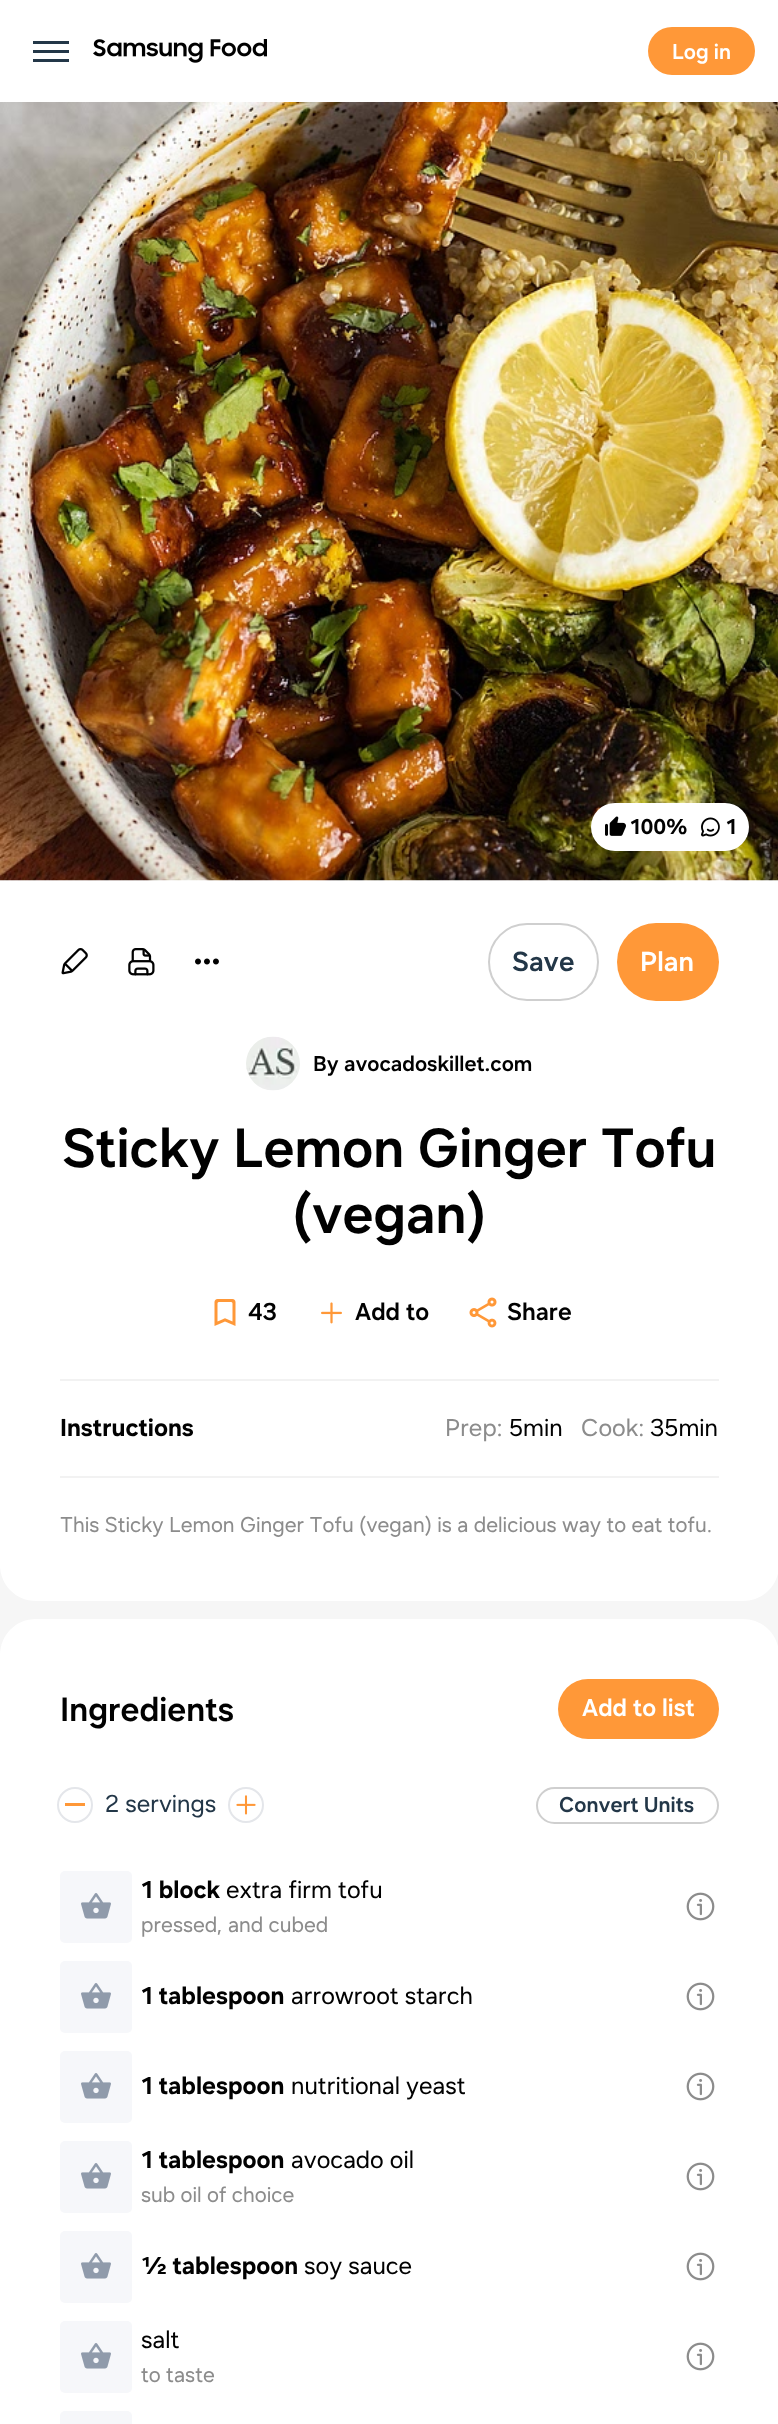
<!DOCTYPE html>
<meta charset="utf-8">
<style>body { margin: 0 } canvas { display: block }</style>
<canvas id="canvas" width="778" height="2424"></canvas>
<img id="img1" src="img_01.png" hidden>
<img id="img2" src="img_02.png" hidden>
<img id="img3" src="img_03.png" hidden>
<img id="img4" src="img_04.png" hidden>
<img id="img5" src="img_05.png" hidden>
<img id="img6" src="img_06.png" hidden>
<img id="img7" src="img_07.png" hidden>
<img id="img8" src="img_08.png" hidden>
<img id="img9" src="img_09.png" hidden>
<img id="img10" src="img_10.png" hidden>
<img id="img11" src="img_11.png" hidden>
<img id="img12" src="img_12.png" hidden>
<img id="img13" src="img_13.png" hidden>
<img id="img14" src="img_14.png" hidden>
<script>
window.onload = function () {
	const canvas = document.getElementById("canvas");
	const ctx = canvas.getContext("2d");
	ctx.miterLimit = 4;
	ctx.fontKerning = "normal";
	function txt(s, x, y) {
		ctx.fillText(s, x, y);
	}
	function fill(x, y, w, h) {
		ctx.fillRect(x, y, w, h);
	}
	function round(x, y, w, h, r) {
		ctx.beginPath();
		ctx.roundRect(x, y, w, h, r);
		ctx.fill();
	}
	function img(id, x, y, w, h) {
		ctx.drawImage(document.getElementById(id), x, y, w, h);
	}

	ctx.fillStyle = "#F6F6F6";
	fill(0, 0, 778, 2424);
	ctx.fillStyle = "#FFFFFF";
	fill(0, 0, 778, 102);
	ctx.fillStyle = "#233748";
	fill(33, 41, 36, 3);
	fill(33, 50, 36, 3);
	fill(33, 59, 36, 3);
	img("img1", 93, 39, 174, 24);
	ctx.fillStyle = "#FF9838";
	round(648, 27, 107, 48, 24);
	ctx.fillStyle = "#FFFFFF";
	fill(0, 880, 778, 1);
	img("img2", 0, 102, 778, 779);
	round(591, 803, 158, 48, 24);
	img("img3", 605, 816, 21, 20);
	img("img4", 701, 817, 19, 20);
	ctx.beginPath();
	ctx.moveTo(0, 881);
	ctx.lineTo(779, 881);
	ctx.lineTo(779, 1565);
	ctx.bezierCurveTo(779, 1585, 763, 1601, 743, 1601);
	ctx.lineTo(36, 1601);
	ctx.bezierCurveTo(16, 1601, 0, 1585, 0, 1565);
	ctx.closePath();
	ctx.fill();
	img("img5", 61, 948, 27, 27);
	img("img6", 128, 948, 27, 28);
	img("img7", 195, 958, 24, 7);
	ctx.beginPath();
	ctx.roundRect(489, 924, 109, 76, 38);
	ctx.strokeStyle = "#CFCFCF";
	ctx.lineWidth = 2;
	ctx.stroke();
	ctx.fillStyle = "#FF9838";
	round(617, 923, 102, 78, 39);
	img("img8", 246, 1036, 54, 55);
	img("img9", 214, 1299, 22, 27);
	img("img10", 321, 1302, 21, 22);
	img("img11", 469, 1297, 28, 31);
	ctx.fillStyle = "#F2F2F2";
	fill(60, 1379, 659, 2);
	fill(60, 1476, 659, 2);
	ctx.fillStyle = "#FFFFFF";
	ctx.beginPath();
	ctx.moveTo(36, 1619);
	ctx.lineTo(743, 1619);
	ctx.bezierCurveTo(763, 1619, 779, 1635, 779, 1655);
	ctx.lineTo(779, 2424);
	ctx.lineTo(0, 2424);
	ctx.lineTo(0, 1655);
	ctx.bezierCurveTo(0, 1635, 16, 1619, 36, 1619);
	ctx.closePath();
	ctx.fill();
	ctx.fillStyle = "#FF9838";
	round(558, 1679, 161, 60, 30);
	ctx.beginPath();
	ctx.arc(75, 1805, 17, 0, Math.PI * 2);
	ctx.strokeStyle = "#E4E6EA";
	ctx.stroke();
	fill(65, 1803, 20, 3);
	ctx.beginPath();
	ctx.arc(246, 1805, 17, 0, Math.PI * 2);
	ctx.stroke();
	img("img12", 236, 1795, 20, 20);
	ctx.beginPath();
	ctx.roundRect(537, 1788, 181, 35, 17.5);
	ctx.strokeStyle = "#CFCFCF";
	ctx.stroke();
	ctx.fillStyle = "#F6F7FA";
	round(60, 1871, 72, 72, 5);
	img("img13", 81, 1893, 30, 26);
	img("img14", 686, 1892, 29, 29);
	round(60, 1961, 72, 72, 5);
	img("img13", 81, 1983, 30, 26);
	img("img14", 686, 1982, 29, 29);
	round(60, 2051, 72, 72, 5);
	img("img13", 81, 2073, 30, 26);
	img("img14", 686, 2072, 29, 29);
	round(60, 2141, 72, 72, 5);
	img("img13", 81, 2163, 30, 26);
	img("img14", 686, 2162, 29, 29);
	round(60, 2231, 72, 72, 5);
	img("img13", 81, 2253, 30, 26);
	img("img14", 686, 2252, 29, 29);
	round(60, 2321, 72, 72, 5);
	img("img13", 81, 2343, 30, 26);
	img("img14", 686, 2342, 29, 29);
	ctx.beginPath();
	ctx.roundRect(60, 2411, 72, 13, [5, 5, 0, 0]);
	ctx.fill();
	ctx.font = "600 21px 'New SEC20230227'";
	ctx.fillStyle = "#FFFFFF";
	txt("Log in", 672, 59);
	ctx.fillStyle = "#AF914E";
	txt("Log in", 672, 161);
	ctx.font = "bold 21px 'New SEC20230227'";
	ctx.fillStyle = "#010101";
	txt("100%", 630, 834);
	txt("1", 726, 834);
	ctx.font = "600 27px 'New SEC20230227'";
	ctx.fillStyle = "#233748";
	txt("Save", 512, 971);
	ctx.fillStyle = "#FFFFFF";
	txt("Plan", 640, 971);
	ctx.font = "600 21px 'New SEC20230227'";
	ctx.fillStyle = "#010101";
	txt("By avocadoskillet.com", 313, 1071);
	ctx.font = "600 54px 'New SEC20230227'";
	txt("Sticky Lemon Ginger Tofu", 62, 1167);
	txt("(vegan)", 292, 1233);
	ctx.font = "600 24px 'New SEC20230227'";
	txt("43", 248, 1320);
	txt("Add to", 355, 1320);
	txt("Share", 507, 1320);
	ctx.font = "bold 24px 'New SEC20230227'";
	txt("Instructions", 60, 1436);
	ctx.font = "24px 'New SEC20230227'";
	ctx.fillStyle = "#8C8C8C";
	txt("Prep:", 445, 1436);
	ctx.fillStyle = "#010101";
	txt("5min", 509, 1436);
	ctx.fillStyle = "#8C8C8C";
	txt("Cook:", 581, 1436);
	ctx.fillStyle = "#010101";
	txt("35min", 650, 1436);
	ctx.font = "21px 'New SEC20230227'";
	ctx.fillStyle = "#8C8C8C";
	txt("This Sticky Lemon Ginger Tofu (vegan) is a delicious way to eat tofu.", 60, 1532);
	ctx.font = "600 33px 'New SEC20230227'";
	ctx.fillStyle = "#010101";
	txt("Ingredients", 60, 1721);
	ctx.font = "600 24px 'New SEC20230227'";
	ctx.fillStyle = "#FFFFFF";
	txt("Add to list", 582, 1716);
	ctx.font = "24px 'New SEC20230227'";
	ctx.fillStyle = "#233748";
	txt("2 servings", 105, 1812);
	ctx.font = "600 21px 'New SEC20230227'";
	txt("Convert Units", 559, 1812);
	ctx.font = "bold 24px 'New SEC20230227'";
	ctx.fillStyle = "#010101";
	txt("1 block", 141, 1898);
	ctx.font = "24px 'New SEC20230227'";
	txt("extra firm tofu", 226, 1898);
	ctx.font = "21px 'New SEC20230227'";
	ctx.fillStyle = "#8C8C8C";
	txt("pressed, and cubed", 141, 1932);
	ctx.font = "bold 24px 'New SEC20230227'";
	ctx.fillStyle = "#010101";
	txt("1 tablespoon", 141, 2004);
	ctx.font = "24px 'New SEC20230227'";
	txt("arrowroot starch", 291, 2004);
	ctx.font = "bold 24px 'New SEC20230227'";
	txt("1 tablespoon", 141, 2094);
	ctx.font = "24px 'New SEC20230227'";
	txt("nutritional yeast", 291, 2094);
	ctx.font = "bold 24px 'New SEC20230227'";
	txt("1 tablespoon", 141, 2168);
	ctx.font = "24px 'New SEC20230227'";
	txt("avocado oil", 291, 2168);
	ctx.font = "21px 'New SEC20230227'";
	ctx.fillStyle = "#8C8C8C";
	txt("sub oil of choice", 141, 2202);
	ctx.font = "bold 24px 'New SEC20230227'";
	ctx.fillStyle = "#010101";
	txt("½ tablespoon", 141, 2274);
	ctx.font = "24px 'New SEC20230227'";
	txt("soy sauce", 304, 2274);
	txt("salt", 141, 2348);
	ctx.font = "21px 'New SEC20230227'";
	ctx.fillStyle = "#8C8C8C";
	txt("to taste", 141, 2382);
};
</script>
